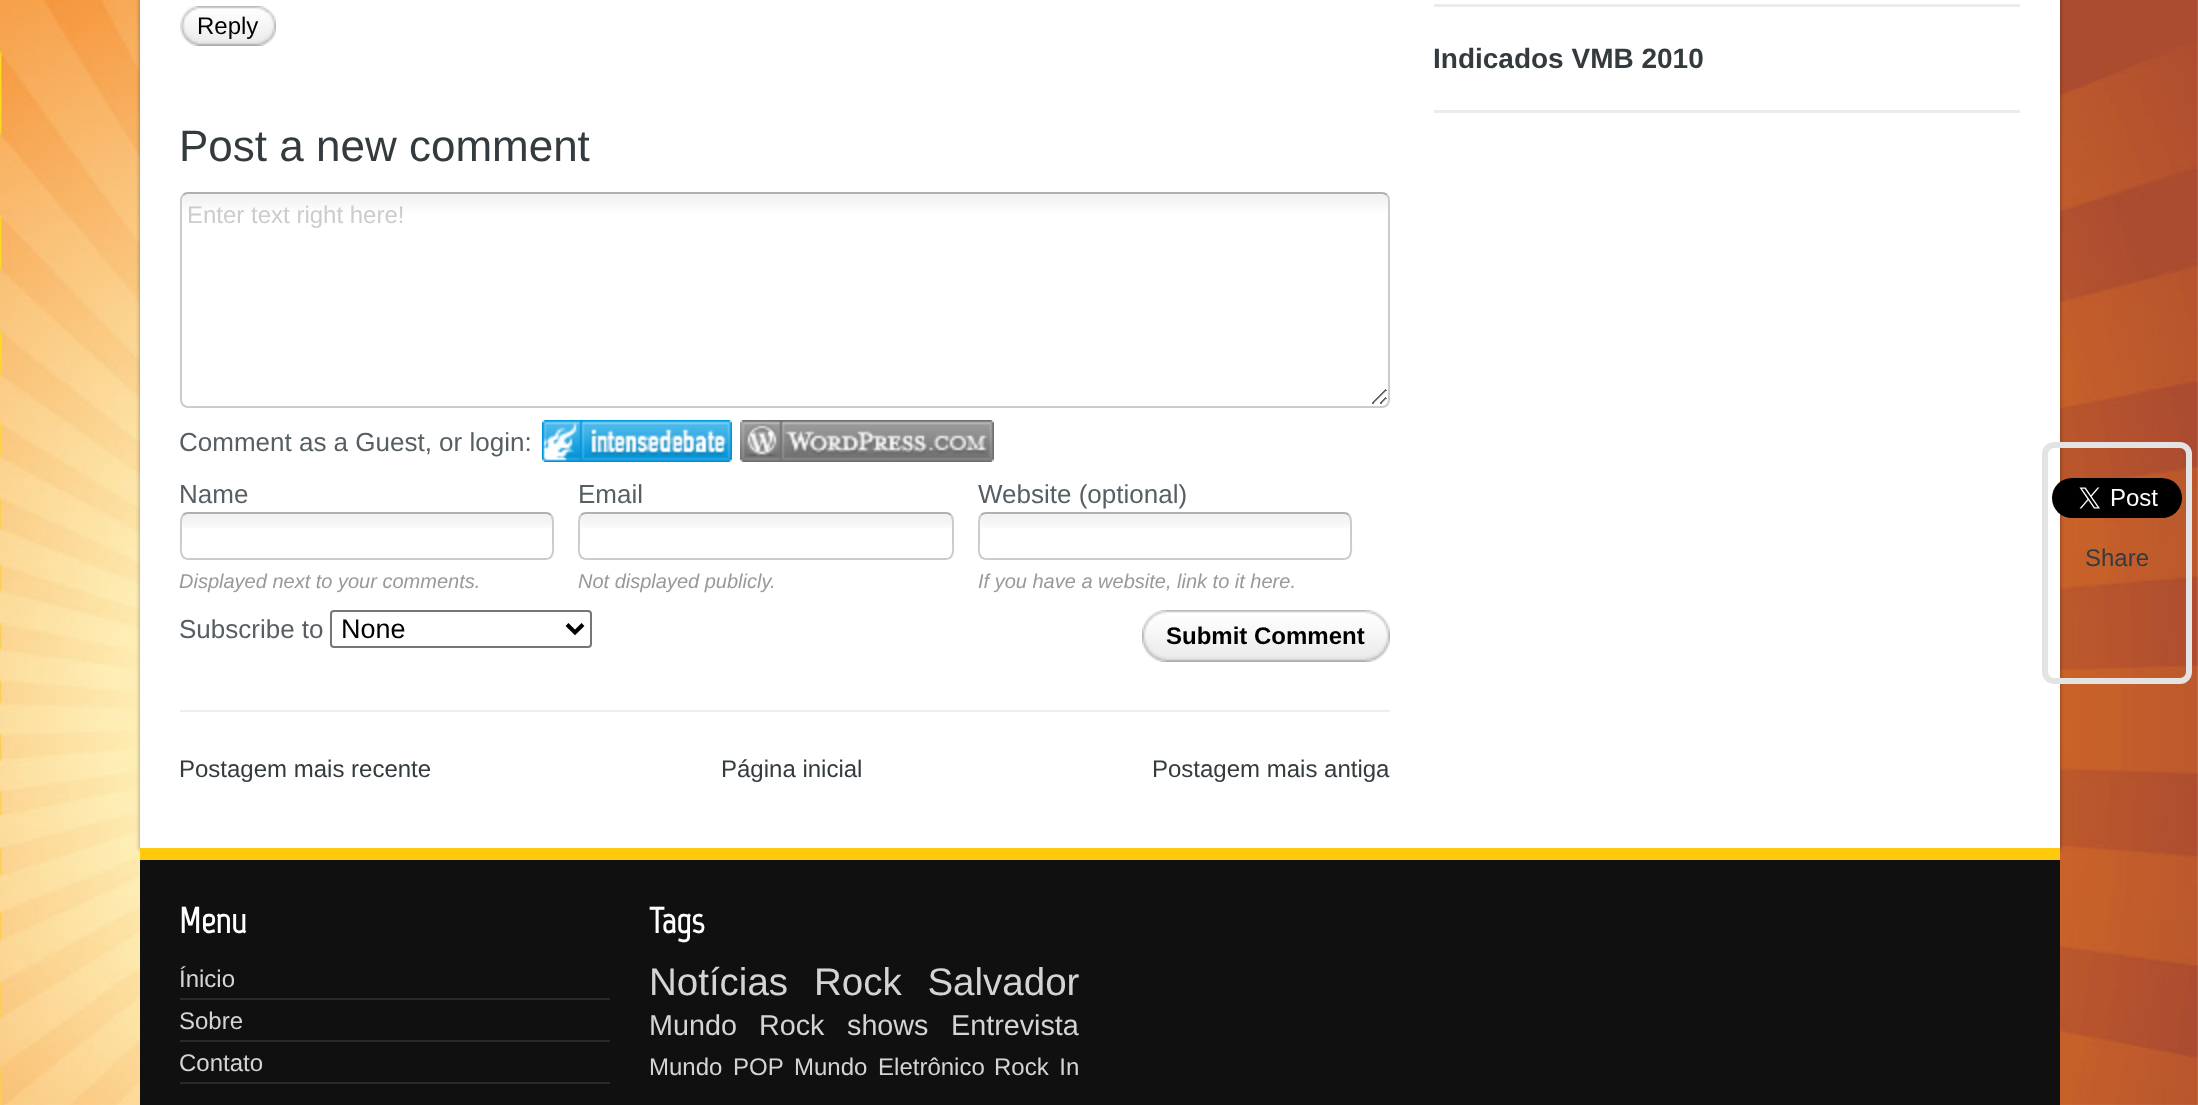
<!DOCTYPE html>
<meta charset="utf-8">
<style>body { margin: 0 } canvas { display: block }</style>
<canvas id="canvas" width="2198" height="1105"></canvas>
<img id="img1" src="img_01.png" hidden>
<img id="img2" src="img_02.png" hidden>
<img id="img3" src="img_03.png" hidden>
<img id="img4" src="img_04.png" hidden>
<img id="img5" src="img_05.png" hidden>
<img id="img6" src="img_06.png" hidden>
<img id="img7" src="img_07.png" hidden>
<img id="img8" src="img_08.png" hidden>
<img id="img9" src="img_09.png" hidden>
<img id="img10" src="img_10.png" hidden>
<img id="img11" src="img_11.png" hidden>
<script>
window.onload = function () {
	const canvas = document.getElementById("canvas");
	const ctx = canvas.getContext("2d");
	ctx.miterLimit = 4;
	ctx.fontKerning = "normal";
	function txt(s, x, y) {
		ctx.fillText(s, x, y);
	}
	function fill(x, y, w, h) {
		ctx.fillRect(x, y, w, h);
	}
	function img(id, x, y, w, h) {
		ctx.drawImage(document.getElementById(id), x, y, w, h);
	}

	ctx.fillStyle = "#FFFFFF";
	fill(0, 0, 2198, 1105);
	img("img1", 0, 0, 2198, 1105);
	ctx.fillStyle = "rgba(0, 0, 0, 0.4)";
	ctx.filter = "blur(2px)";
	ctx.beginPath();
	ctx.rect(140, -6, 1920, 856);
	ctx.fill();
	ctx.filter = "none";
	ctx.fillStyle = "#FFFFFF";
	fill(140, 0, 1920, 848);
	img("img2", 180, 6, 18, 40);
	img("img3", 198, 6, 78, 40);
	img("img4", 182, 194, 1208, 210);
	ctx.beginPath();
	ctx.moveTo(183, 195);
	ctx.bezierCurveTo(184.5, 193.5, 186, 193, 188, 193);
	ctx.lineTo(1382, 193);
	ctx.bezierCurveTo(1384, 193, 1385.5, 193.5, 1387, 195);
	ctx.strokeStyle = "#B0B0B0";
	ctx.lineWidth = 2;
	ctx.stroke();
	ctx.beginPath();
	ctx.moveTo(1387, 195);
	ctx.bezierCurveTo(1388.5, 196.5, 1389, 198, 1389, 200);
	ctx.lineTo(1389, 400);
	ctx.bezierCurveTo(1389, 402, 1388.5, 403.5, 1387, 405);
	ctx.bezierCurveTo(1385.5, 406.5, 1384, 407, 1382, 407);
	ctx.lineTo(188, 407);
	ctx.bezierCurveTo(186, 407, 184.5, 406.5, 183, 405);
	ctx.bezierCurveTo(181.5, 403.5, 181, 402, 181, 400);
	ctx.lineTo(181, 200);
	ctx.bezierCurveTo(181, 198, 181.5, 196.5, 183, 195);
	ctx.strokeStyle = "#CCCCCC";
	ctx.stroke();
	img("img5", 542, 420, 190, 42);
	img("img6", 740, 420, 254, 42);
	img("img7", 182, 514, 372, 14);
	ctx.beginPath();
	ctx.moveTo(183, 515);
	ctx.bezierCurveTo(184.5, 513.5, 186, 513, 188, 513);
	ctx.lineTo(546, 513);
	ctx.bezierCurveTo(548, 513, 549.5, 513.5, 551, 515);
	ctx.strokeStyle = "#B0B0B0";
	ctx.stroke();
	ctx.beginPath();
	ctx.moveTo(551, 515);
	ctx.bezierCurveTo(553.5, 518, 553, 522, 553, 525.5);
	ctx.lineTo(553, 541.5);
	ctx.bezierCurveTo(553, 547, 555, 559, 546, 559);
	ctx.lineTo(188, 559);
	ctx.bezierCurveTo(179, 559, 181, 547, 181, 541.5);
	ctx.lineTo(181, 525.5);
	ctx.bezierCurveTo(181, 522, 180.5, 518, 183, 515);
	ctx.strokeStyle = "#CCCCCC";
	ctx.stroke();
	img("img8", 580, 514, 374, 14);
	ctx.beginPath();
	ctx.moveTo(581, 515);
	ctx.bezierCurveTo(582.5, 513.5, 584, 513, 586, 513);
	ctx.lineTo(946, 513);
	ctx.bezierCurveTo(948, 513, 949.5, 513.5, 951, 515);
	ctx.strokeStyle = "#B0B0B0";
	ctx.stroke();
	ctx.beginPath();
	ctx.moveTo(951, 515);
	ctx.bezierCurveTo(953.5, 518, 953, 522, 953, 525.5);
	ctx.lineTo(953, 541.5);
	ctx.bezierCurveTo(953, 547, 955, 559, 946, 559);
	ctx.lineTo(586, 559);
	ctx.bezierCurveTo(577, 559, 579, 547, 579, 541.5);
	ctx.lineTo(579, 525.5);
	ctx.bezierCurveTo(579, 522, 578.5, 518, 581, 515);
	ctx.strokeStyle = "#CCCCCC";
	ctx.stroke();
	img("img7", 980, 514, 372, 14);
	ctx.beginPath();
	ctx.moveTo(981, 515);
	ctx.bezierCurveTo(982.5, 513.5, 984, 513, 986, 513);
	ctx.lineTo(1344, 513);
	ctx.bezierCurveTo(1346, 513, 1347.5, 513.5, 1349, 515);
	ctx.strokeStyle = "#B0B0B0";
	ctx.stroke();
	ctx.beginPath();
	ctx.moveTo(1349, 515);
	ctx.bezierCurveTo(1351.5, 518, 1351, 522, 1351, 525.5);
	ctx.lineTo(1351, 541.5);
	ctx.bezierCurveTo(1351, 547, 1353, 559, 1344, 559);
	ctx.lineTo(986, 559);
	ctx.bezierCurveTo(977, 559, 979, 547, 979, 541.5);
	ctx.lineTo(979, 525.5);
	ctx.bezierCurveTo(979, 522, 978.5, 518, 981, 515);
	ctx.strokeStyle = "#CCCCCC";
	ctx.stroke();
	ctx.beginPath();
	ctx.roundRect(331, 611, 260, 36, 3);
	ctx.strokeStyle = "#767676";
	ctx.stroke();
	ctx.beginPath();
	ctx.moveTo(567, 624.5);
	ctx.lineTo(575, 632.5);
	ctx.lineTo(583, 624.5);
	ctx.strokeStyle = "#000000";
	ctx.lineWidth = 4;
	ctx.stroke();
	img("img9", 1142, 610, 24, 52);
	img("img10", 1166, 610, 224, 52);
	ctx.fillStyle = "#EEEEEE";
	fill(180, 710, 1210, 2);
	ctx.beginPath();
	ctx.roundRect(2045, 445, 144, 236, 9);
	ctx.strokeStyle = "#E3E3E3";
	ctx.lineWidth = 6;
	ctx.stroke();
	img("img11", 2052, 478, 130, 40);
	ctx.fillStyle = "#EBEBEB";
	fill(1434, 4, 586, 3);
	fill(1434, 110, 586, 3);
	ctx.fillStyle = "#101010";
	fill(140, 860, 1920, 245);
	ctx.fillStyle = "#FFC90D";
	fill(140, 848, 1920, 12);
	ctx.fillStyle = "#292929";
	fill(180, 998, 430, 2);
	fill(180, 1040, 430, 2);
	fill(180, 1082, 430, 2);
	ctx.font = "24px Liberation Sans";
	ctx.fillStyle = "#000000";
	txt("Reply", 197, 34);
	ctx.font = "44px Liberation Sans";
	ctx.fillStyle = "#333B3E";
	txt("Post a new comment", 179, 161);
	ctx.font = "24px Liberation Sans";
	ctx.fillStyle = "#CCCCCC";
	txt("Enter text right here!", 187, 223);
	ctx.font = "26px Liberation Sans";
	ctx.fillStyle = "#565F63";
	txt("Comment as a Guest, or login:", 179, 451);
	txt("Name", 179, 503);
	txt("Email", 578, 503);
	txt("Website (optional)", 978, 503);
	ctx.font = "italic 20px Liberation Sans";
	ctx.fillStyle = "#999999";
	txt("Displayed next to your comments.", 179, 588);
	txt("Not displayed publicly.", 578, 588);
	txt("If you have a website, link to it here.", 978, 588);
	ctx.font = "26px Liberation Sans";
	ctx.fillStyle = "#565F63";
	txt("Subscribe to", 179, 638);
	ctx.font = "27px Liberation Sans";
	ctx.fillStyle = "#000000";
	txt("None", 341, 638);
	ctx.font = "bold 24px Liberation Sans";
	txt("Submit Comment", 1166, 644);
	ctx.font = "24px Liberation Sans";
	ctx.fillStyle = "#333B3E";
	txt("Postagem mais recente", 179, 777);
	txt("Página inicial", 721, 777);
	txt("Postagem mais antiga", 1152, 777);
	txt("Share", 2085, 566);
	ctx.font = "bold 28px Liberation Sans";
	txt("Indicados VMB 2010", 1433, 68);
	ctx.font = "bold 36px Marvel";
	ctx.fillStyle = "#FFFFFF";
	txt("Menu", 179, 933);
	ctx.font = "24px Liberation Sans";
	ctx.fillStyle = "#D4D4D4";
	txt("Ínicio", 179, 987);
	txt("Sobre", 179, 1029);
	txt("Contato", 179, 1071);
	ctx.font = "bold 36px Marvel";
	ctx.fillStyle = "#FFFFFF";
	txt("Tags", 649, 933);
	ctx.font = "38.5px Liberation Sans";
	ctx.fillStyle = "#D4D4D4";
	txt("Notícias", 649, 995);
	ctx.wordSpacing = "15px";
	txt("Rock Salvador", 814, 995);
	ctx.wordSpacing = "14px";
	ctx.font = "28.75px Liberation Sans";
	txt("Mundo Rock", 649, 1035);
	ctx.wordSpacing = "0px";
	txt("shows", 847, 1035);
	txt("Entrevista", 951, 1035);
	ctx.wordSpacing = "4px";
	ctx.font = "24px Liberation Sans";
	txt("Mundo POP", 649, 1075);
	txt("Mundo Eletrônico", 794, 1075);
	txt("Rock In", 994, 1075);
};
</script>
